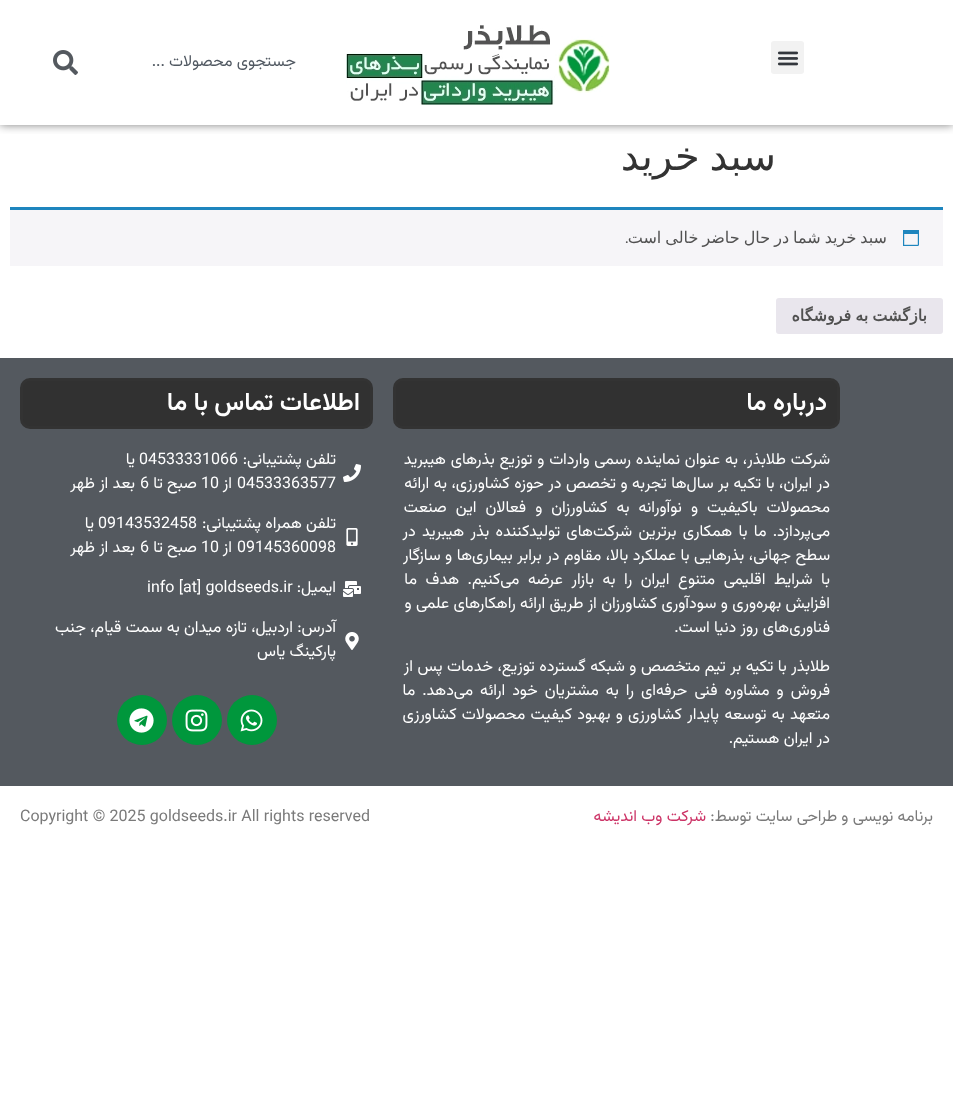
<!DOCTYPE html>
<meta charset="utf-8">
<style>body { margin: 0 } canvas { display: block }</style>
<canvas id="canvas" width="953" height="1118"></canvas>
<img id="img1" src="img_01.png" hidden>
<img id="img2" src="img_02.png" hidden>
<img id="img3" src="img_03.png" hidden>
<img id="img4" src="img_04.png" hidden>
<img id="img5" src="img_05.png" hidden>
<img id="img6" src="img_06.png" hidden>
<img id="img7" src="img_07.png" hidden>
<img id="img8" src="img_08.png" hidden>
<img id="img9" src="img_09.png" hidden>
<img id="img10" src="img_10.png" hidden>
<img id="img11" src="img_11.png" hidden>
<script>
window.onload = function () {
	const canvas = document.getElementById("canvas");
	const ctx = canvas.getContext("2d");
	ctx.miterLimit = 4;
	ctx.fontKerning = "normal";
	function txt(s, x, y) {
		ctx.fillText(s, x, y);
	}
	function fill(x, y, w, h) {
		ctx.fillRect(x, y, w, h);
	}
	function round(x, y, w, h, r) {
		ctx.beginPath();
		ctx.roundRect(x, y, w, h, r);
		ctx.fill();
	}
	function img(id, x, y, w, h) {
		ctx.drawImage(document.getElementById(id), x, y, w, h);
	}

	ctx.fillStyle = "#FFFFFF";
	fill(0, 0, 953, 1118);
	ctx.save();
	ctx.beginPath();
	ctx.rect(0, 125, 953, 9);
	ctx.clip();
	ctx.fillStyle = "rgba(0, 0, 0, 0.5)";
	ctx.filter = "blur(5px)";
	ctx.beginPath();
	ctx.rect(0, 0, 953, 125);
	ctx.fill();
	ctx.filter = "none";
	ctx.restore();
	ctx.fillStyle = "#F2F2F2";
	round(771, 41, 33, 33, 3);
	img("img1", 777, 51, 22, 15);
	img("img2", 346, 25, 264, 80);
	img("img3", 53, 50, 25, 25);
	ctx.fillStyle = "#F6F5F8";
	fill(10, 210, 933, 56);
	ctx.fillStyle = "#1E85BE";
	fill(10, 207, 933, 3);
	img("img4", 903, 230, 16, 16);
	ctx.fillStyle = "#E9E6ED";
	round(776, 298, 167, 36, 3);
	ctx.fillStyle = "#54595F";
	fill(0, 358, 953, 428);
	ctx.fillStyle = "#313131";
	ctx.beginPath();
	ctx.roundRect(394.5, 379.5, 444, 48, 8.5);
	ctx.fill();
	ctx.strokeStyle = "#333333";
	ctx.lineWidth = 3;
	ctx.stroke();
	ctx.beginPath();
	ctx.roundRect(21.5, 379.5, 350, 48, 8.5);
	ctx.fill();
	ctx.stroke();
	img("img5", 343, 464, 18, 18);
	img("img6", 346, 528, 12, 18);
	img("img7", 343, 581, 18, 16);
	img("img8", 345, 632, 14, 18);
	ctx.fillStyle = "#00973C";
	ctx.beginPath();
	ctx.arc(252, 720, 25, 0, Math.PI * 2);
	ctx.fill();
	img("img9", 240, 709, 23, 23);
	ctx.beginPath();
	ctx.arc(197, 720, 25, 0, Math.PI * 2);
	ctx.fill();
	img("img10", 185, 709, 23, 23);
	ctx.beginPath();
	ctx.arc(142, 720, 25, 0, Math.PI * 2);
	ctx.fill();
	img("img11", 129, 708, 25, 25);
	ctx.direction = "rtl";
	ctx.font = "16px Vazirmatn";
	ctx.fillStyle = "#515962";
	txt("جستجوی محصولات ...", 296, 66);
	ctx.wordSpacing = "-3px";
	ctx.font = "40px DejaVu Sans";
	ctx.fillStyle = "#333333";
	txt("سبد خرید", 776, 170);
	ctx.wordSpacing = "-1px";
	ctx.font = "16px DejaVu Sans";
	ctx.fillStyle = "#515151";
	txt("سبد خرید شما در حال حاضر خالی است", 887, 243);
	ctx.wordSpacing = "0px";
	ctx.font = "16px Roboto";
	txt(".", 629, 243);
	ctx.wordSpacing = "-1px";
	ctx.font = "bold 16px DejaVu Sans";
	txt("بازگشت به فروشگاه", 927, 321);
	ctx.wordSpacing = "0px";
	ctx.font = "600 25px Vazirmatn";
	ctx.fillStyle = "#FFFFFF";
	txt("درباره ما", 827, 410);
	ctx.wordSpacing = "0.5px";
	ctx.font = "16px Vazirmatn";
	txt("شرکت طلابذر، به عنوان نماینده رسمی واردات و توزیع بذرهای هیبرید", 830, 464);
	ctx.wordSpacing = "0.25px";
	txt("در ایران، با تکیه بر سال‌ها تجربه و تخصص در حوزه کشاورزی، به ارائه", 830, 488);
	ctx.wordSpacing = "4.75px";
	txt("محصولات باکیفیت و نوآورانه به کشاورزان و فعالان این صنعت", 830, 512);
	ctx.wordSpacing = "2px";
	txt("می‌پردازد. ما با همکاری برترین شرکت‌های تولیدکننده بذر هیبرید در", 830, 536);
	ctx.wordSpacing = "0.25px";
	txt("سطح جهانی، بذرهایی با عملکرد بالا، مقاوم در برابر بیماری‌ها و سازگار", 830, 560);
	ctx.wordSpacing = "4.25px";
	txt("با شرایط اقلیمی متنوع ایران را به بازار عرضه می‌کنیم. هدف ما", 830, 584);
	ctx.wordSpacing = "0px";
	txt("افزایش بهره‌وری و سودآوری کشاورزان از طریق ارائه راهکارهای علمی و", 830, 608);
	txt("فناوری‌های روز دنیا است.", 830, 632);
	ctx.wordSpacing = "0.25px";
	txt("طلابذر با تکیه بر تیم متخصص و شبکه گسترده توزیع، خدمات پس از", 830, 671);
	ctx.wordSpacing = "2.75px";
	txt("فروش و مشاوره فنی حرفه‌ای را به مشتریان خود ارائه می‌دهد. ما", 830, 695);
	ctx.wordSpacing = "1px";
	txt("متعهد به توسعه پایدار کشاورزی و بهبود کیفیت محصولات کشاورزی", 830, 719);
	ctx.wordSpacing = "0px";
	txt("در ایران هستیم.", 830, 743);
	ctx.font = "600 25px Vazirmatn";
	txt("اطلاعات تماس با ما", 360, 410);
	ctx.font = "16px Vazirmatn";
	txt("تلفن پشتیبانی:", 336, 464);
	ctx.direction = "ltr";
	txt("04533331066", 139, 464);
	ctx.direction = "rtl";
	txt("یا", 135, 464);
	ctx.direction = "ltr";
	txt("04533363577", 237, 488);
	ctx.direction = "rtl";
	txt("از", 232, 488);
	ctx.direction = "ltr";
	txt("10", 201, 488);
	ctx.direction = "rtl";
	txt("صبح تا", 197, 488);
	ctx.direction = "ltr";
	txt("6", 140, 488);
	ctx.direction = "rtl";
	txt("بعد از ظهر", 135, 488);
	txt("تلفن همراه پشتیبانی:", 336, 528);
	ctx.direction = "ltr";
	txt("09143532458", 98, 528);
	ctx.direction = "rtl";
	txt("یا", 94, 528);
	ctx.direction = "ltr";
	txt("09145360098", 237, 552);
	ctx.direction = "rtl";
	txt("از", 232, 552);
	ctx.direction = "ltr";
	txt("10", 201, 552);
	ctx.direction = "rtl";
	txt("صبح تا", 197, 552);
	ctx.direction = "ltr";
	txt("6", 140, 552);
	ctx.direction = "rtl";
	txt("بعد از ظهر", 135, 552);
	txt("ایمیل:", 336, 592);
	ctx.direction = "ltr";
	txt("info [at] goldseeds.ir", 147, 592);
	ctx.direction = "rtl";
	txt("آدرس: اردبیل، تازه میدان به سمت قیام، جنب", 336, 632);
	txt("پارکینگ یاس", 336, 656);
	ctx.fillStyle = "#7A7A7A";
	txt("برنامه نویسی و طراحی سایت توسط:", 933, 821);
	ctx.fillStyle = "#CC3366";
	txt("شرکت وب اندیشه", 706, 821);
	ctx.direction = "ltr";
	ctx.fillStyle = "#7A7A7A";
	txt("Copyright © 2025 goldseeds.ir All rights reserved", 20, 821);
};
</script>
